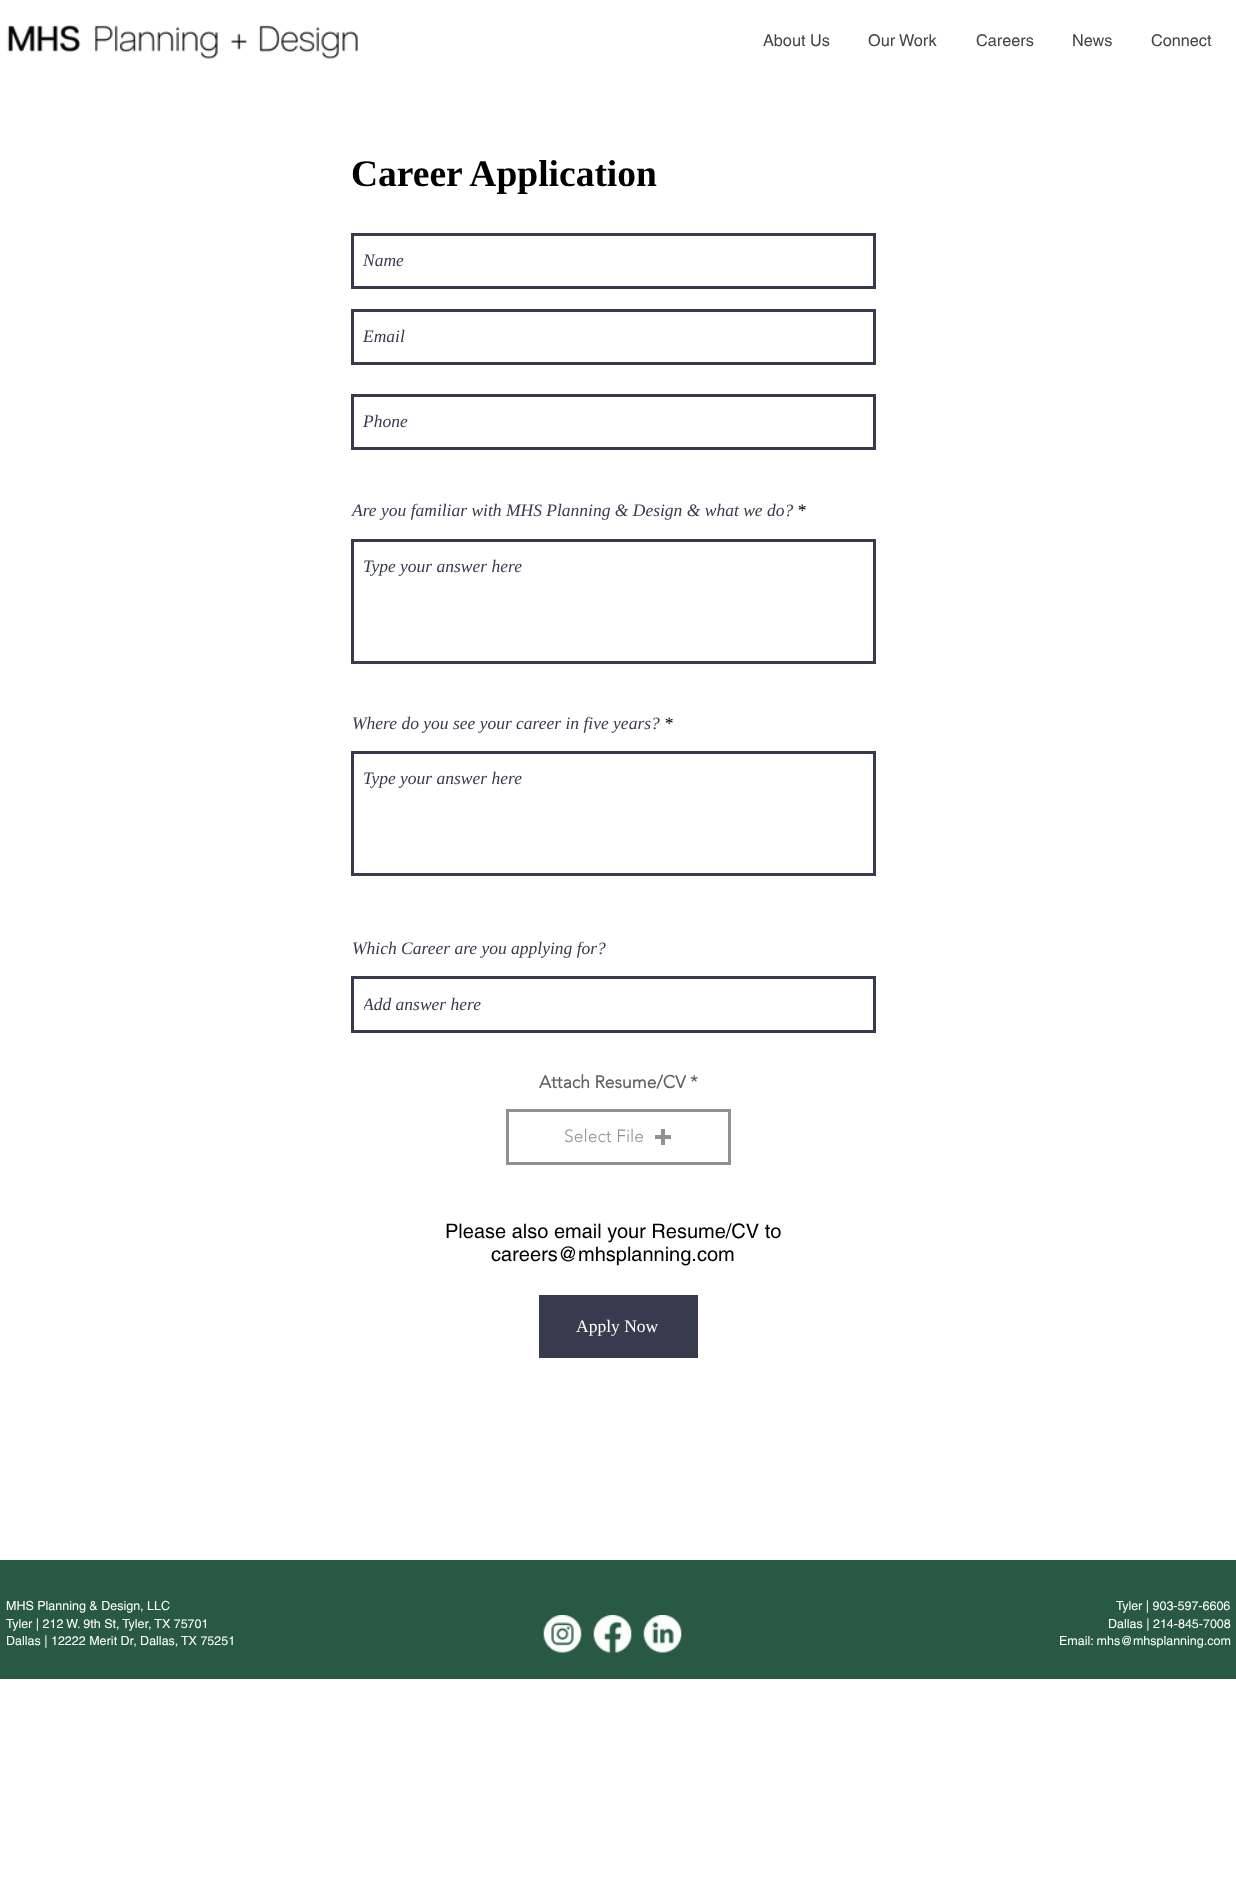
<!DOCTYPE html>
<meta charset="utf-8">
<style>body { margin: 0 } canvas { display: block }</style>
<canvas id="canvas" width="1236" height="1900"></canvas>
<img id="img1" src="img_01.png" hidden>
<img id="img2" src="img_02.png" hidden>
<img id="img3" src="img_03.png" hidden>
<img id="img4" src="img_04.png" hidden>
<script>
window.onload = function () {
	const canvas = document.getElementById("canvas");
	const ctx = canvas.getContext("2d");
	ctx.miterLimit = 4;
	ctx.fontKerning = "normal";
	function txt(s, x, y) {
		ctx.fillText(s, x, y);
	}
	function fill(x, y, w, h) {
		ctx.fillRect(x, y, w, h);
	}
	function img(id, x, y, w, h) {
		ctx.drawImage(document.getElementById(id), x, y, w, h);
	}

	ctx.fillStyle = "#FFFFFF";
	fill(0, 0, 1236, 1900);
	img("img1", 7, 25, 351, 34);
	ctx.strokeStyle = "#373B4D";
	ctx.lineWidth = 3;
	ctx.strokeRect(352.5, 234.5, 522, 53);
	ctx.strokeRect(352.5, 310.5, 522, 53);
	ctx.strokeRect(352.5, 395.5, 522, 53);
	ctx.strokeRect(352.5, 540.5, 522, 122);
	ctx.strokeRect(352.5, 752.5, 522, 122);
	ctx.strokeRect(352.5, 977.5, 522, 54);
	ctx.strokeStyle = "#919191";
	ctx.strokeRect(507.5, 1110.5, 222, 53);
	ctx.fillStyle = "#919191";
	fill(661, 1129, 4, 16);
	fill(655, 1135, 16, 4);
	ctx.fillStyle = "#373B4D";
	fill(539, 1295, 159, 63);
	ctx.fillStyle = "#285A43";
	fill(0, 1560, 1236, 119);
	img("img2", 543, 1615, 39, 38);
	img("img3", 593, 1615, 39, 38);
	img("img4", 643, 1615, 39, 38);
	ctx.font = "16.25px helvetica";
	ctx.fillStyle = "#444444";
	txt("About Us", 763, 46);
	txt("Our Work", 868, 46);
	txt("Careers", 976, 46);
	txt("News", 1072, 46);
	txt("Connect", 1151, 46);
	ctx.font = "bold 37.5px Liberation Serif";
	ctx.fillStyle = "#000000";
	txt("Career Application", 351, 186);
	ctx.font = "italic 17.5px Liberation Serif";
	ctx.fillStyle = "#373B4D";
	txt("Name", 363, 266);
	txt("Email", 363, 342);
	txt("Phone", 363, 427);
	txt("Are you familiar with MHS Planning & Design & what we do?", 352, 516);
	ctx.fillStyle = "#000000";
	txt("*", 797, 516);
	ctx.fillStyle = "#373B4D";
	txt("Type your answer here", 363, 572);
	txt("Where do you see your career in five years?", 352, 729);
	ctx.fillStyle = "#000000";
	txt("*", 664, 729);
	ctx.fillStyle = "#373B4D";
	txt("Type your answer here", 363, 784);
	txt("Which Career are you applying for?", 352, 954);
	ctx.save();
	ctx.beginPath();
	ctx.rect(364, 995, 506, 20);
	ctx.clip();
	txt("Add answer here", 363, 1010);
	ctx.restore();
	ctx.font = "bold 17.5px 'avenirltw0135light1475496'";
	ctx.fillStyle = "#61615F";
	txt("Attach Resume/CV *", 539, 1088);
	ctx.font = "300 17.5px 'avenirltw0135light1475496'";
	ctx.fillStyle = "#919191";
	txt("Select File", 564, 1142);
	ctx.font = "20px helvetica";
	ctx.fillStyle = "#000000";
	txt("Please also email your Resume/CV to", 445, 1238);
	txt("careers@mhsplanning.com", 491, 1261);
	ctx.font = "17.5px Liberation Serif";
	ctx.fillStyle = "#FFFFFF";
	txt("Apply Now", 576, 1332);
	ctx.font = "12.5px helvetica";
	txt("MHS Planning & Design, LLC", 6, 1610);
	txt("Tyler | 212 W. 9th St, Tyler, TX 75701", 6, 1628);
	txt("Dallas | 12222 Merit Dr, Dallas, TX 75251", 6, 1645);
	txt("Tyler | 903-597-6606", 1116, 1610);
	txt("Dallas | 214-845-7008", 1108, 1628);
	txt("Email: mhs@mhsplanning.com", 1059, 1645);
};
</script>
